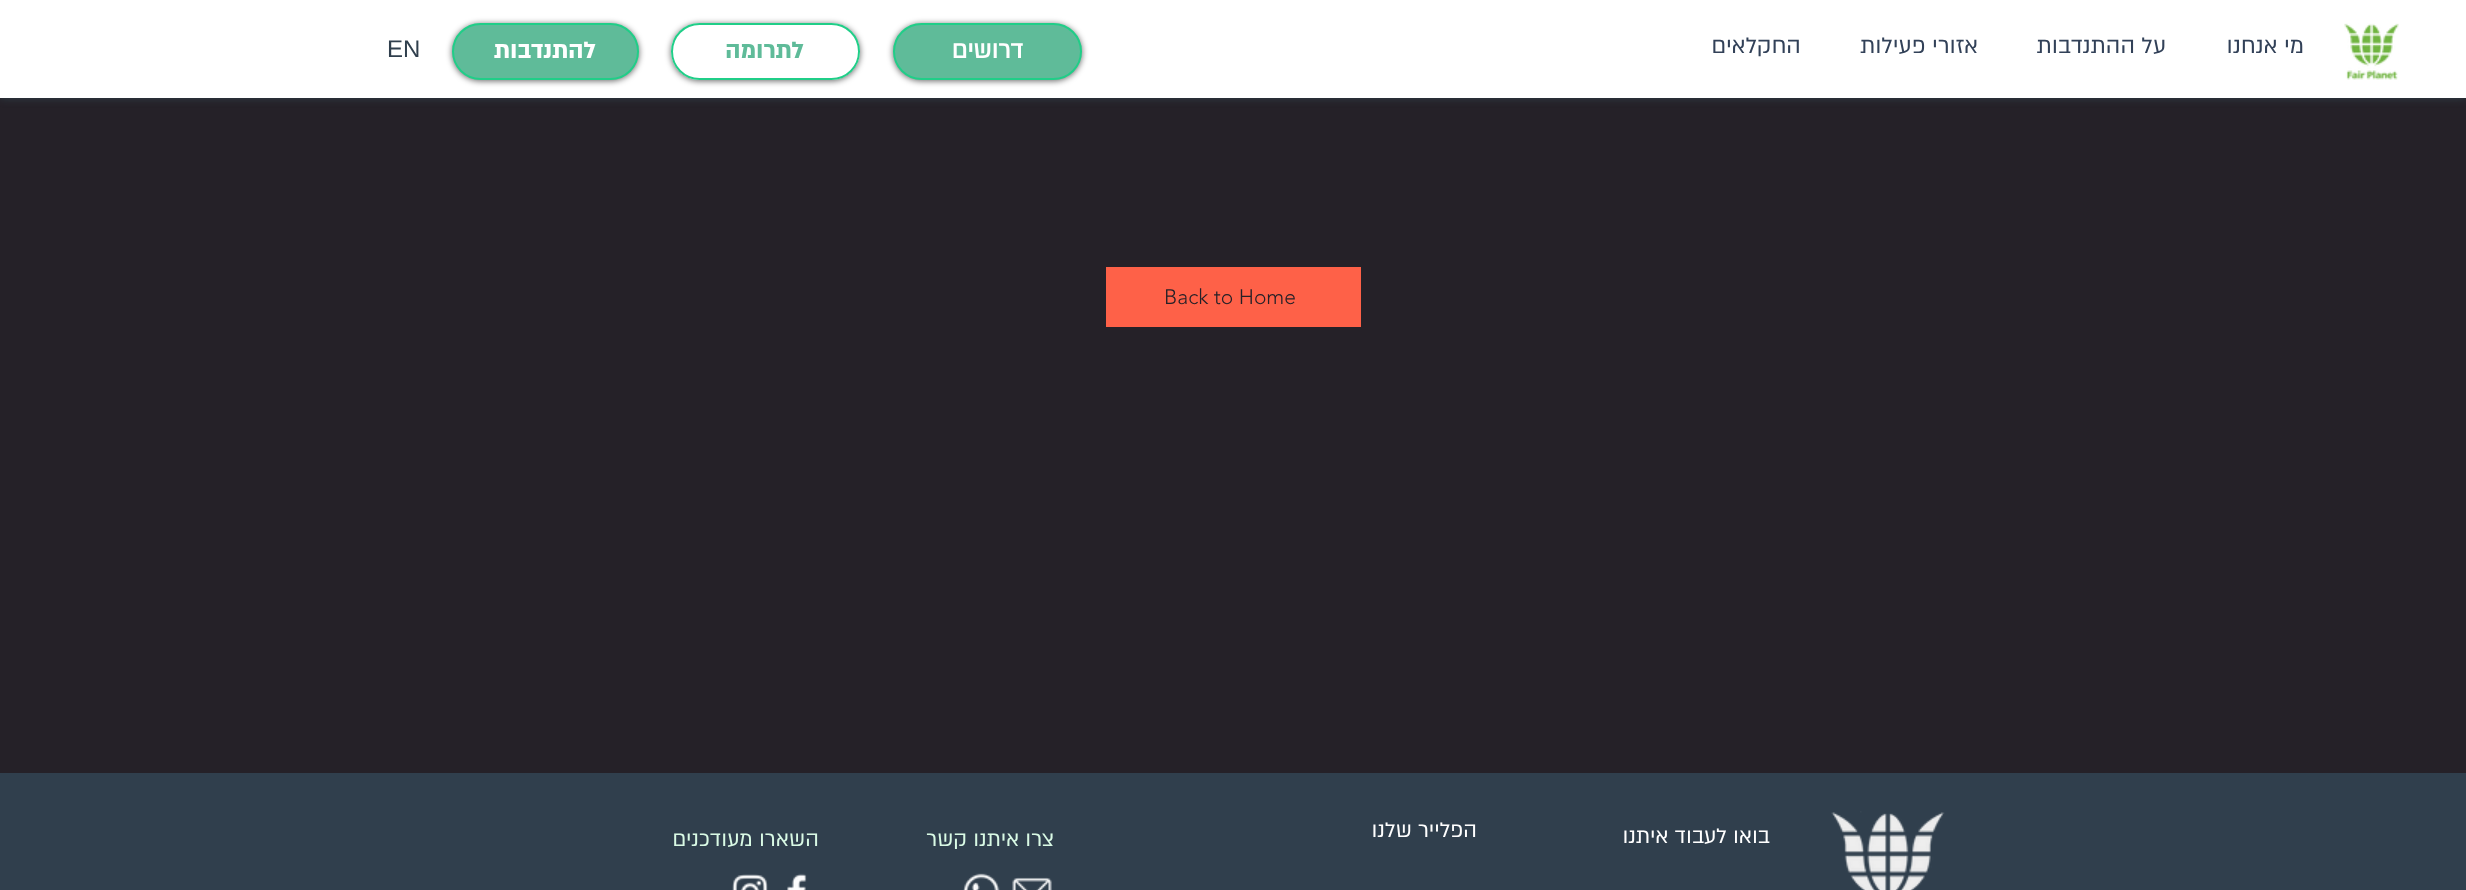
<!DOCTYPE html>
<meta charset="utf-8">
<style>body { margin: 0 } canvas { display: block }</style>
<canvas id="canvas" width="2466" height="890"></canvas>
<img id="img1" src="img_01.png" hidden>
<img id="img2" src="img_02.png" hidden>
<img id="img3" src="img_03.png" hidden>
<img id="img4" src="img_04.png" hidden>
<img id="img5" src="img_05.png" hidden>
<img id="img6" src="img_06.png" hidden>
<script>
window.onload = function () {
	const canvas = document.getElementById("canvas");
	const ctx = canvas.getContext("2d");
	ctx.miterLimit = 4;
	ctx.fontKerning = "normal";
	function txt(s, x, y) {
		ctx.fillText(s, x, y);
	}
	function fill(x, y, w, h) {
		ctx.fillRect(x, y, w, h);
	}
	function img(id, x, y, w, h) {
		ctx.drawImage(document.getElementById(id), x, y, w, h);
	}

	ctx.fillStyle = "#252128";
	fill(0, 0, 2466, 890);
	ctx.fillStyle = "rgba(61, 104, 117, 0.44)";
	ctx.filter = "blur(4px)";
	ctx.beginPath();
	ctx.rect(0, 0, 2466, 98);
	ctx.fill();
	ctx.filter = "none";
	ctx.fillStyle = "#FFFFFF";
	fill(0, 0, 2466, 98);
	img("img1", 2344, 23, 55, 57);
	ctx.fillStyle = "rgba(0, 0, 0, 0.6)";
	ctx.filter = "blur(3px)";
	ctx.beginPath();
	ctx.roundRect(893, 24, 189, 57, 28.5);
	ctx.fill();
	ctx.filter = "none";
	ctx.fillStyle = "#5FBB99";
	ctx.beginPath();
	ctx.roundRect(894, 24, 187, 55, 27.5);
	ctx.fill();
	ctx.strokeStyle = "#20CE88";
	ctx.lineWidth = 2;
	ctx.stroke();
	ctx.save();
	ctx.beginPath();
	ctx.moveTo(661, 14);
	ctx.lineTo(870, 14);
	ctx.lineTo(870, 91);
	ctx.lineTo(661, 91);
	ctx.closePath();
	ctx.moveTo(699.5, 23);
	ctx.lineTo(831.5, 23);
	ctx.bezierCurveTo(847, 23, 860, 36, 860, 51.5);
	ctx.bezierCurveTo(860, 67, 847, 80, 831.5, 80);
	ctx.lineTo(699.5, 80);
	ctx.bezierCurveTo(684, 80, 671, 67, 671, 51.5);
	ctx.bezierCurveTo(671, 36, 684, 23, 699.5, 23);
	ctx.closePath();
	ctx.clip("evenodd");
	ctx.fillStyle = "rgba(0, 0, 0, 0.6)";
	ctx.filter = "blur(3px)";
	ctx.beginPath();
	ctx.roundRect(671, 24, 189, 57, 28.5);
	ctx.fill();
	ctx.filter = "none";
	ctx.restore();
	ctx.beginPath();
	ctx.roundRect(672, 24, 187, 55, 27.5);
	ctx.stroke();
	ctx.fillStyle = "rgba(0, 0, 0, 0.6)";
	ctx.filter = "blur(3px)";
	ctx.beginPath();
	ctx.roundRect(452, 24, 187, 57, 28.5);
	ctx.fill();
	ctx.filter = "none";
	ctx.fillStyle = "#5FBB99";
	ctx.beginPath();
	ctx.roundRect(453, 24, 185, 55, 27.5);
	ctx.fill();
	ctx.stroke();
	ctx.fillStyle = "#FE6148";
	fill(1106, 267, 255, 60);
	ctx.fillStyle = "#303F4D";
	fill(0, 773, 2466, 117);
	img("img2", 1831, 811, 114, 79);
	img("img3", 1012, 877, 40, 13);
	img("img4", 963, 873, 37, 17);
	img("img5", 787, 873, 20, 17);
	img("img6", 732, 874, 36, 16);
	ctx.direction = "rtl";
	ctx.font = "25.5px 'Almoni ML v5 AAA'";
	ctx.fillStyle = "#324158";
	txt("מי אנחנו", 2304, 53);
	txt("על ההתנדבות", 2166, 53);
	txt("אזורי פעילות", 1978, 53);
	txt("החקלאים", 1801, 53);
	ctx.font = "bold 27px 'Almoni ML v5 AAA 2'";
	ctx.fillStyle = "#FFFFFF";
	txt("דרושים", 1023, 58);
	ctx.font = "bold 27px 'Almoni ML v5 AAA'";
	ctx.fillStyle = "#5FBB99";
	txt("לתרומה", 804, 58);
	ctx.fillStyle = "#FFFFFF";
	txt("להתנדבות", 596, 58);
	ctx.direction = "ltr";
	ctx.font = "24px Liberation Sans";
	ctx.fillStyle = "#303F4D";
	txt("EN", 387, 57);
	ctx.font = "300 21px 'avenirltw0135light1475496'";
	ctx.fillStyle = "#252128";
	txt("Back to Home", 1164, 304);
	ctx.direction = "rtl";
	ctx.font = "24px 'Almoni ML v5 AAA'";
	ctx.fillStyle = "#FFFFFF";
	txt("בואו לעבוד איתנו", 1770, 843);
	txt("הפלייר שלנו", 1477, 837);
	ctx.fillStyle = "#D9FAE5";
	txt("צרו איתנו קשר", 1054, 846);
	txt("השארו מעודכנים", 819, 846);
};
</script>
